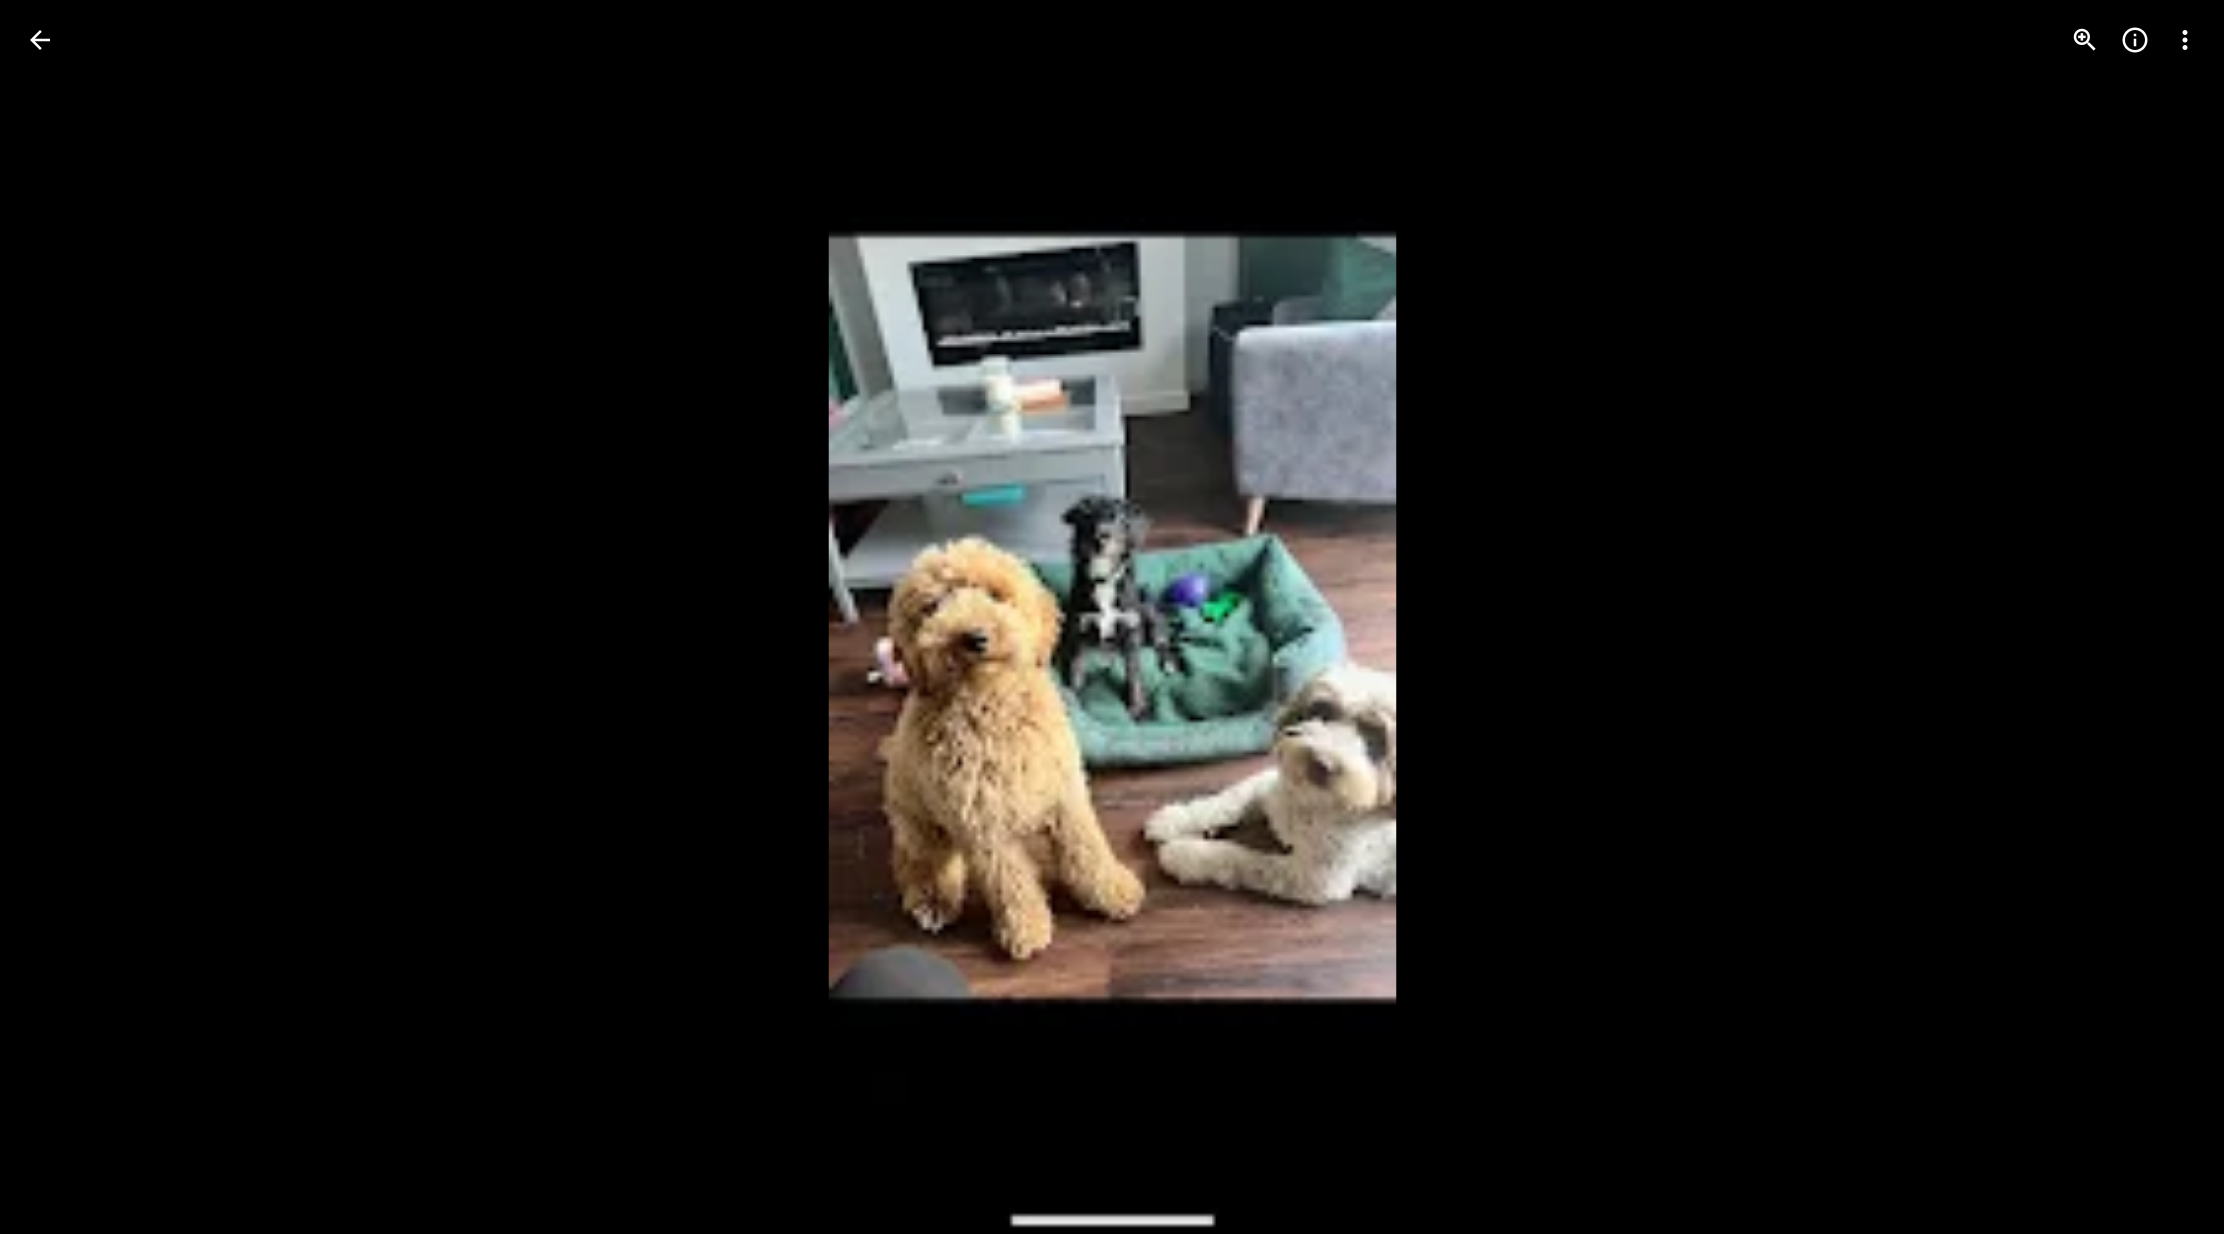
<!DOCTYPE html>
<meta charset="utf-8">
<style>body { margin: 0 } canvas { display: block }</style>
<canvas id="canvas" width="2224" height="1234"></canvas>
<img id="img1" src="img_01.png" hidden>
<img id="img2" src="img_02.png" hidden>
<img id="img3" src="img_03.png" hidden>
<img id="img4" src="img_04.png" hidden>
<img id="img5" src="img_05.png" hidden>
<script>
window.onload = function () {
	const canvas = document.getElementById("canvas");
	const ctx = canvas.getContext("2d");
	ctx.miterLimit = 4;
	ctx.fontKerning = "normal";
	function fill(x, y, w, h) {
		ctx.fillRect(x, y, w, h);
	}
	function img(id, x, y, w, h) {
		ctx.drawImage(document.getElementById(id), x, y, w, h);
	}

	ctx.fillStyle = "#000000";
	fill(0, 0, 2224, 1234);
	img("img1", 30, 30, 20, 20);
	img("img2", 2073, 28, 23, 23);
	img("img3", 2122, 27, 26, 26);
	img("img4", 2182, 30, 6, 20);
	img("img5", 828, 217, 569, 1011);
};
</script>
